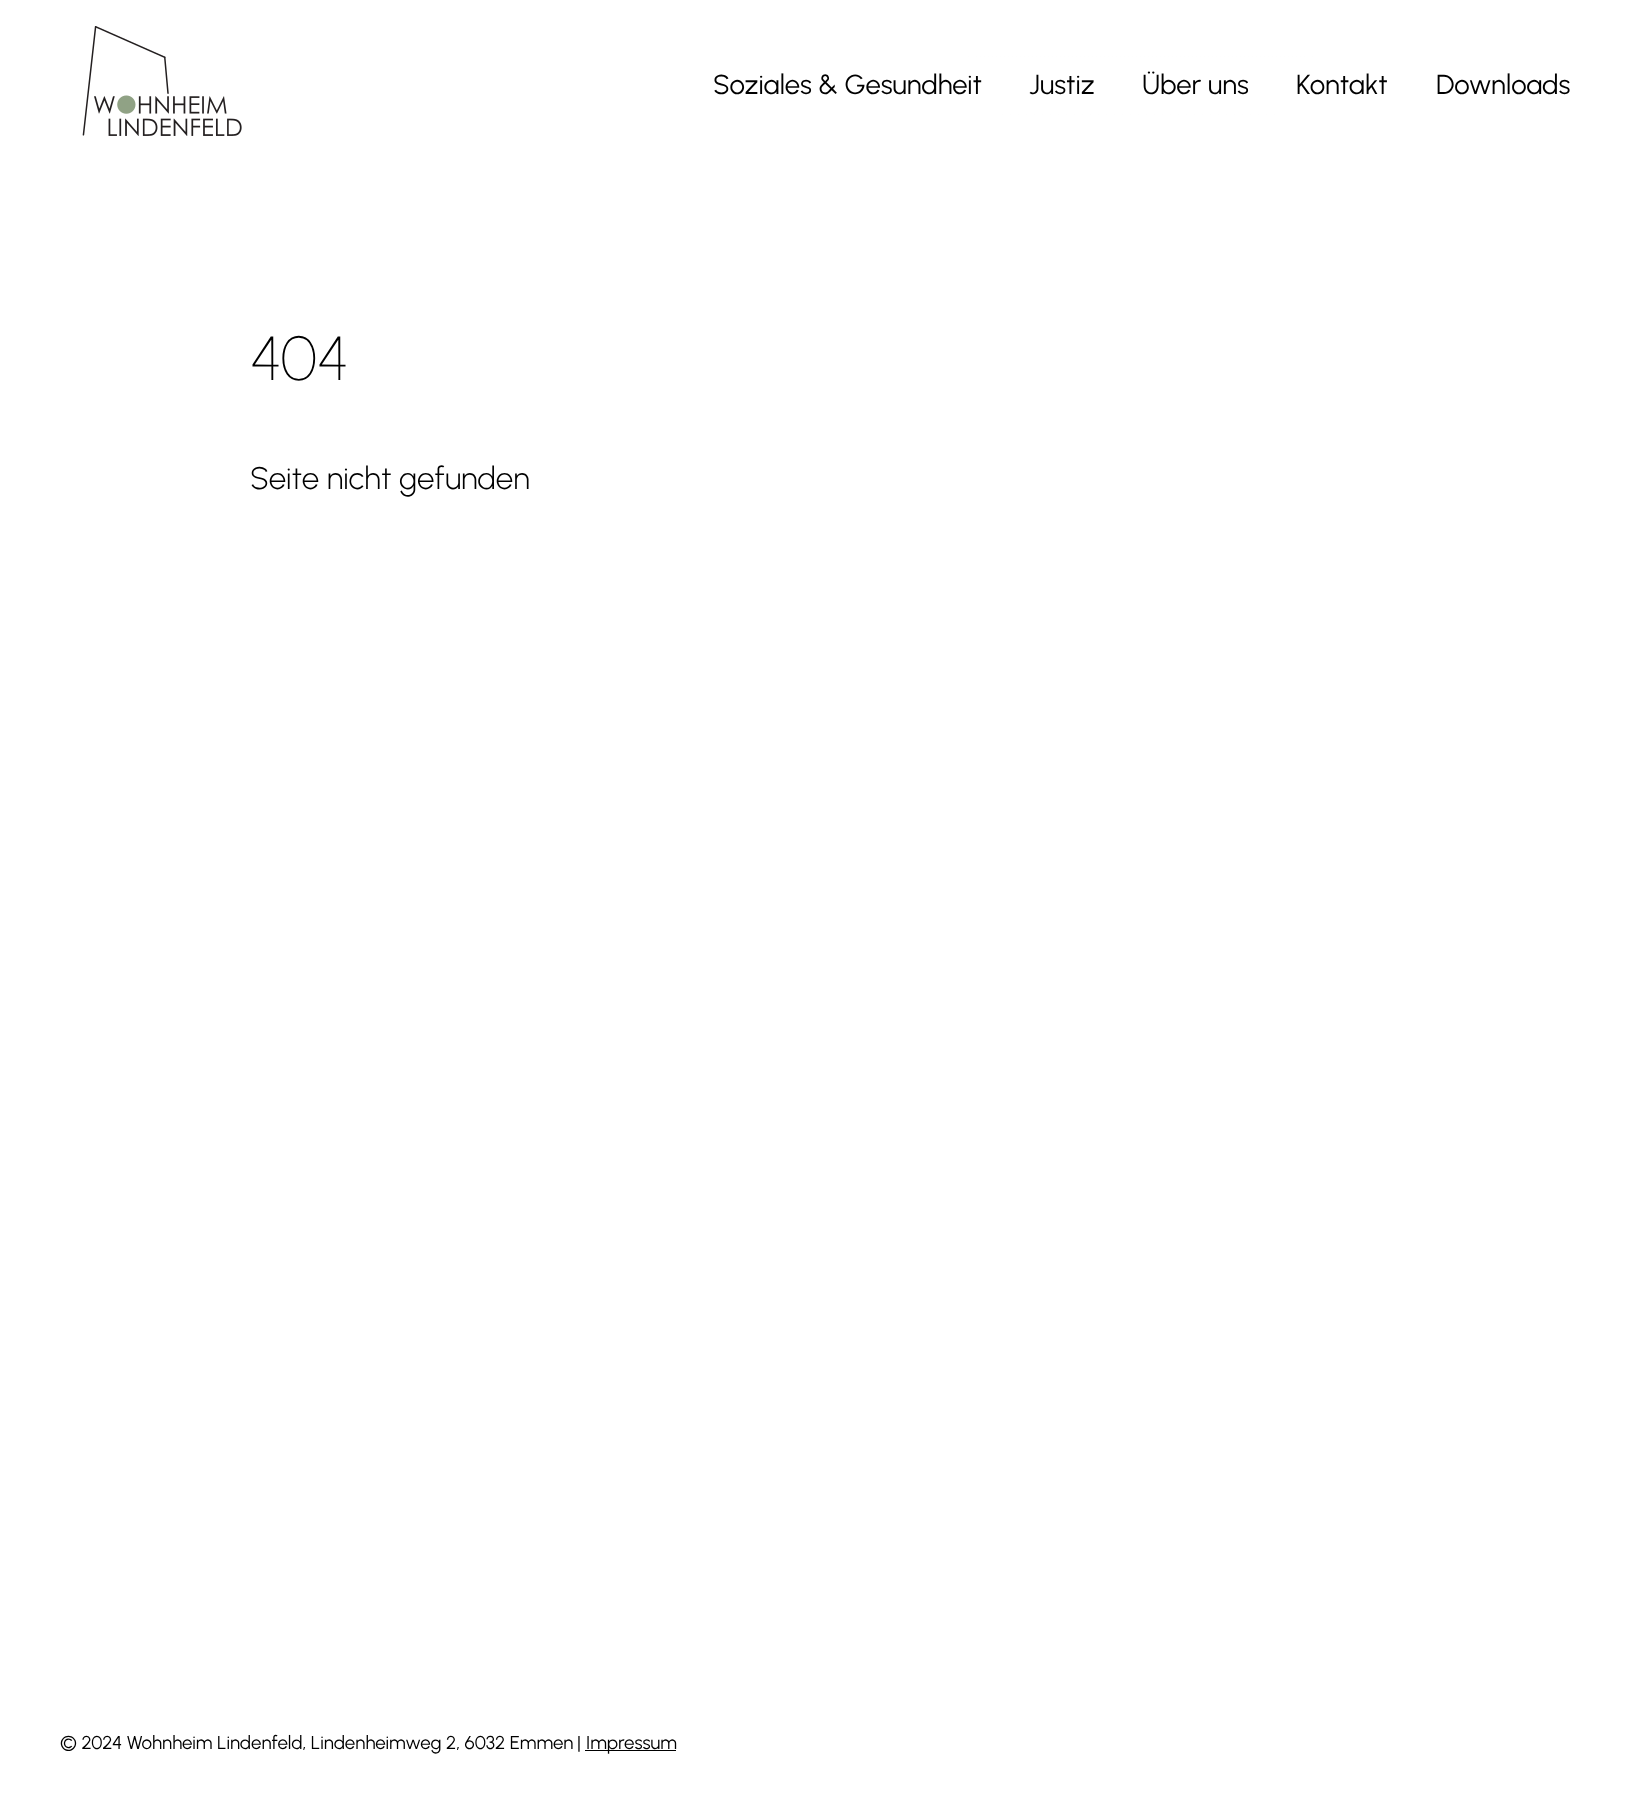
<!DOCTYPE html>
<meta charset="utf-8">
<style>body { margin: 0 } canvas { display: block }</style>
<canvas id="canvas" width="1629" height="1799"></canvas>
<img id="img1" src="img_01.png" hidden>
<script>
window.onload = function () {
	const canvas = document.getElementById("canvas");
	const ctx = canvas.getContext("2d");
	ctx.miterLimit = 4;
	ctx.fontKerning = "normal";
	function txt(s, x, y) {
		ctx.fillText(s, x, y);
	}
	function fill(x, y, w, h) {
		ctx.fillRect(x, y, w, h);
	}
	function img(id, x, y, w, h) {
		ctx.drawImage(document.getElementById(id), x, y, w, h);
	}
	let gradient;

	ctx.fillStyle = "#FFFFFF";
	fill(0, 0, 1629, 1799);
	img("img1", 82, 26, 160, 110);
	gradient = ctx.createRadialGradient(1141, 3098.33, 0, 1141, 3098.33, 429);
	gradient.addColorStop(0, "#CCCCCC");
	gradient.addColorStop(1, "#FFFFFF");
	ctx.fillStyle = gradient;
	ctx.beginPath();
	ctx.rect(968, 113, 346, 2);
	ctx.save();
	ctx.clip();
	ctx.scale(1, 18 / 429);
	ctx.fillRect(0, 0, 1629, 42877);
	ctx.restore();
	gradient = ctx.createRadialGradient(1141, 977.17, 0, 1141, 977.17, 429);
	gradient.addColorStop(0, "#CCCCCC");
	gradient.addColorStop(1, "#FFFFFF");
	ctx.fillStyle = gradient;
	ctx.beginPath();
	ctx.rect(968, 56, 346, 2);
	ctx.save();
	ctx.clip();
	ctx.scale(1, 18 / 429);
	ctx.fillRect(0, 0, 1629, 42877);
	ctx.restore();
	gradient = ctx.createLinearGradient(1141, 80, 1141, 130);
	gradient.addColorStop(0, "rgba(255, 255, 255, 0)");
	gradient.addColorStop(0.7, "#FFFFFF");
	ctx.fillStyle = gradient;
	fill(968, 113, 346, 2);
	gradient = ctx.createLinearGradient(1141, 41, 1141, 91);
	gradient.addColorStop(0.3, "#FFFFFF");
	gradient.addColorStop(1, "rgba(255, 255, 255, 0)");
	ctx.fillStyle = gradient;
	fill(968, 56, 346, 2);
	ctx.fillStyle = "#000000";
	fill(585, 1750, 91, 1);
	ctx.font = "27.5px Urbanist";
	txt("Soziales & Gesundheit", 713, 94);
	txt("Justiz", 1029, 94);
	txt("Über uns", 1142, 94);
	txt("Kontakt", 1296, 94);
	txt("Downloads", 1436, 94);
	ctx.font = "100 62px Urbanist";
	txt("404", 250, 380);
	ctx.font = "300 31.25px Urbanist";
	txt("Seite nicht gefunden", 250, 489);
	ctx.font = "18.75px Urbanist";
	txt("© 2024 Wohnheim Lindenfeld, Lindenheimweg 2, 6032 Emmen", 60, 1749);
	txt("|", 577, 1749);
	txt("Impressum", 586, 1749);
};
</script>
